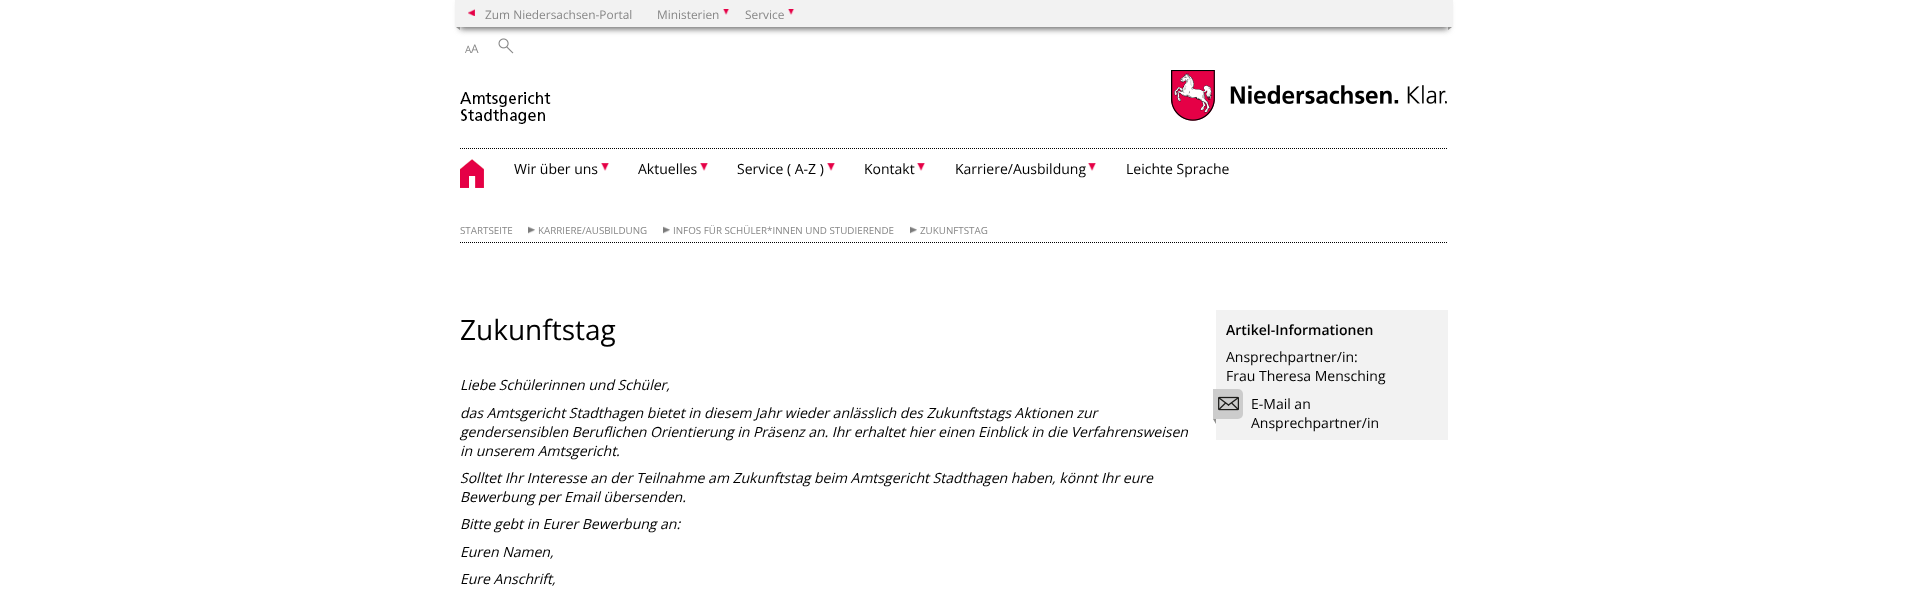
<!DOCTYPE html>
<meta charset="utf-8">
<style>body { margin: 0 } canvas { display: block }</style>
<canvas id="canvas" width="1908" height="601"></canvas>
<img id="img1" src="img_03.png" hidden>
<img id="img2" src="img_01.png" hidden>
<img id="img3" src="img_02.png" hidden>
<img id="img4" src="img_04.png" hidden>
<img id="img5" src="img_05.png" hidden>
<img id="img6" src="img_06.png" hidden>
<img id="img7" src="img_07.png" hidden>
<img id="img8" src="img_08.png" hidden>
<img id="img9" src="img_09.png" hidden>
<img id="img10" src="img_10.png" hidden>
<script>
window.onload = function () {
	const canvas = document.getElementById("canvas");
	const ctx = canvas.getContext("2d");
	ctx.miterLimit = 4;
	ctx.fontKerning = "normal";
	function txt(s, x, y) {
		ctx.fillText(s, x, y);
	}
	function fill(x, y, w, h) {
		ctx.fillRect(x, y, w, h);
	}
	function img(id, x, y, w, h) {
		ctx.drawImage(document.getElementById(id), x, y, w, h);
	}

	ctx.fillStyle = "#FFFFFF";
	fill(0, 0, 1908, 601);
	img("img1", 498, 38, 16, 16);
	ctx.fillStyle = "#666666";
	ctx.filter = "blur(3px)";
	ctx.beginPath();
	ctx.rect(460, 2, 988, 27);
	ctx.fill();
	ctx.filter = "none";
	ctx.fillStyle = "#F2F2F2";
	fill(455, 0, 998, 27);
	img("img2", 468, 9, 7, 7);
	img("img3", 723, 9, 7, 6);
	img("img3", 788, 9, 7, 6);
	ctx.fillStyle = "#90908F";
	ctx.beginPath();
	ctx.moveTo(460, 27);
	ctx.lineTo(460, 30);
	ctx.lineTo(456, 27);
	ctx.closePath();
	ctx.fill();
	ctx.beginPath();
	ctx.moveTo(1448, 30);
	ctx.lineTo(1448, 27);
	ctx.lineTo(1452, 27);
	ctx.closePath();
	ctx.fill();
	img("img4", 460, 92, 91, 32);
	img("img5", 1171, 70, 221, 51);
	img("img6", 1394, 85, 53, 19);
	ctx.beginPath();
	ctx.moveTo(460, 148.5);
	ctx.lineTo(1448, 148.5);
	ctx.strokeStyle = "#000000";
	ctx.setLineDash([1, 1]);
	ctx.stroke();
	img("img7", 460, 159, 24, 29);
	img("img8", 601, 163, 8, 8);
	img("img8", 700, 163, 8, 8);
	img("img8", 827, 163, 8, 8);
	img("img8", 917, 163, 8, 8);
	img("img8", 1088, 163, 8, 8);
	ctx.beginPath();
	ctx.moveTo(460, 242.5);
	ctx.lineTo(1448, 242.5);
	ctx.stroke();
	img("img9", 528, 226, 7, 8);
	img("img9", 663, 226, 7, 8);
	img("img9", 910, 226, 7, 8);
	ctx.fillStyle = "#F2F2F2";
	fill(1216, 310, 232, 130);
	ctx.fillStyle = "#CCCCCC";
	ctx.beginPath();
	ctx.roundRect(1213, 389, 30, 30, [0, 5, 5, 0]);
	ctx.fill();
	img("img10", 1218, 396, 21, 15);
	ctx.fillStyle = "#90908F";
	ctx.beginPath();
	ctx.moveTo(1213, 419);
	ctx.lineTo(1216, 419);
	ctx.lineTo(1216, 424);
	ctx.closePath();
	ctx.fill();
	ctx.font = "11.9px Open Sans";
	ctx.fillStyle = "#878787";
	txt("Zum Niedersachsen-Portal", 485, 19);
	txt("Ministerien", 657, 19);
	txt("Service", 745, 19);
	ctx.font = "10px Open Sans";
	txt("A", 465, 53);
	ctx.font = "11.9px Open Sans";
	txt("A", 471, 53);
	ctx.font = "14px Open Sans";
	ctx.fillStyle = "#000000";
	txt("Wir über uns", 514, 174);
	txt("Aktuelles", 638, 174);
	txt("Service ( A-Z )", 737, 174);
	txt("Kontakt", 864, 174);
	txt("Karriere/Ausbildung", 955, 174);
	txt("Leichte Sprache", 1126, 174);
	ctx.font = "9.8px Open Sans";
	ctx.fillStyle = "#878787";
	txt("STARTSEITE", 460, 234);
	txt("KARRIERE/AUSBILDUNG", 538, 234);
	txt("INFOS FÜR SCHÜLER*INNEN UND STUDIERENDE", 673, 234);
	txt("ZUKUNFTSTAG", 920, 234);
	ctx.font = "28px Open Sans";
	ctx.fillStyle = "#000000";
	txt("Zukunftstag", 460, 340);
	ctx.font = "italic 14px Open Sans";
	txt("Liebe Schülerinnen und Schüler,", 460, 390);
	txt("das Amtsgericht Stadthagen bietet in diesem Jahr wieder anlässlich des Zukunftstags Aktionen zur", 460, 418);
	txt("gendersensiblen Beruflichen Orientierung in Präsenz an. Ihr erhaltet hier einen Einblick in die Verfahrensweisen", 460, 437);
	txt("in unserem Amtsgericht.", 460, 456);
	txt("Solltet Ihr Interesse an der Teilnahme am Zukunftstag beim Amtsgericht Stadthagen haben, könnt Ihr eure", 460, 483);
	txt("Bewerbung per Email übersenden.", 460, 502);
	txt("Bitte gebt in Eurer Bewerbung an:", 460, 529);
	txt("Euren Namen,", 460, 557);
	txt("Eure Anschrift,", 460, 584);
	ctx.font = "600 14px Open Sans";
	txt("Artikel-Informationen", 1226, 335);
	ctx.font = "14px Open Sans";
	txt("Ansprechpartner/in:", 1226, 362);
	txt("Frau Theresa Mensching", 1226, 381);
	txt("E-Mail an", 1251, 409);
	txt("Ansprechpartner/in", 1251, 428);
};
</script>
